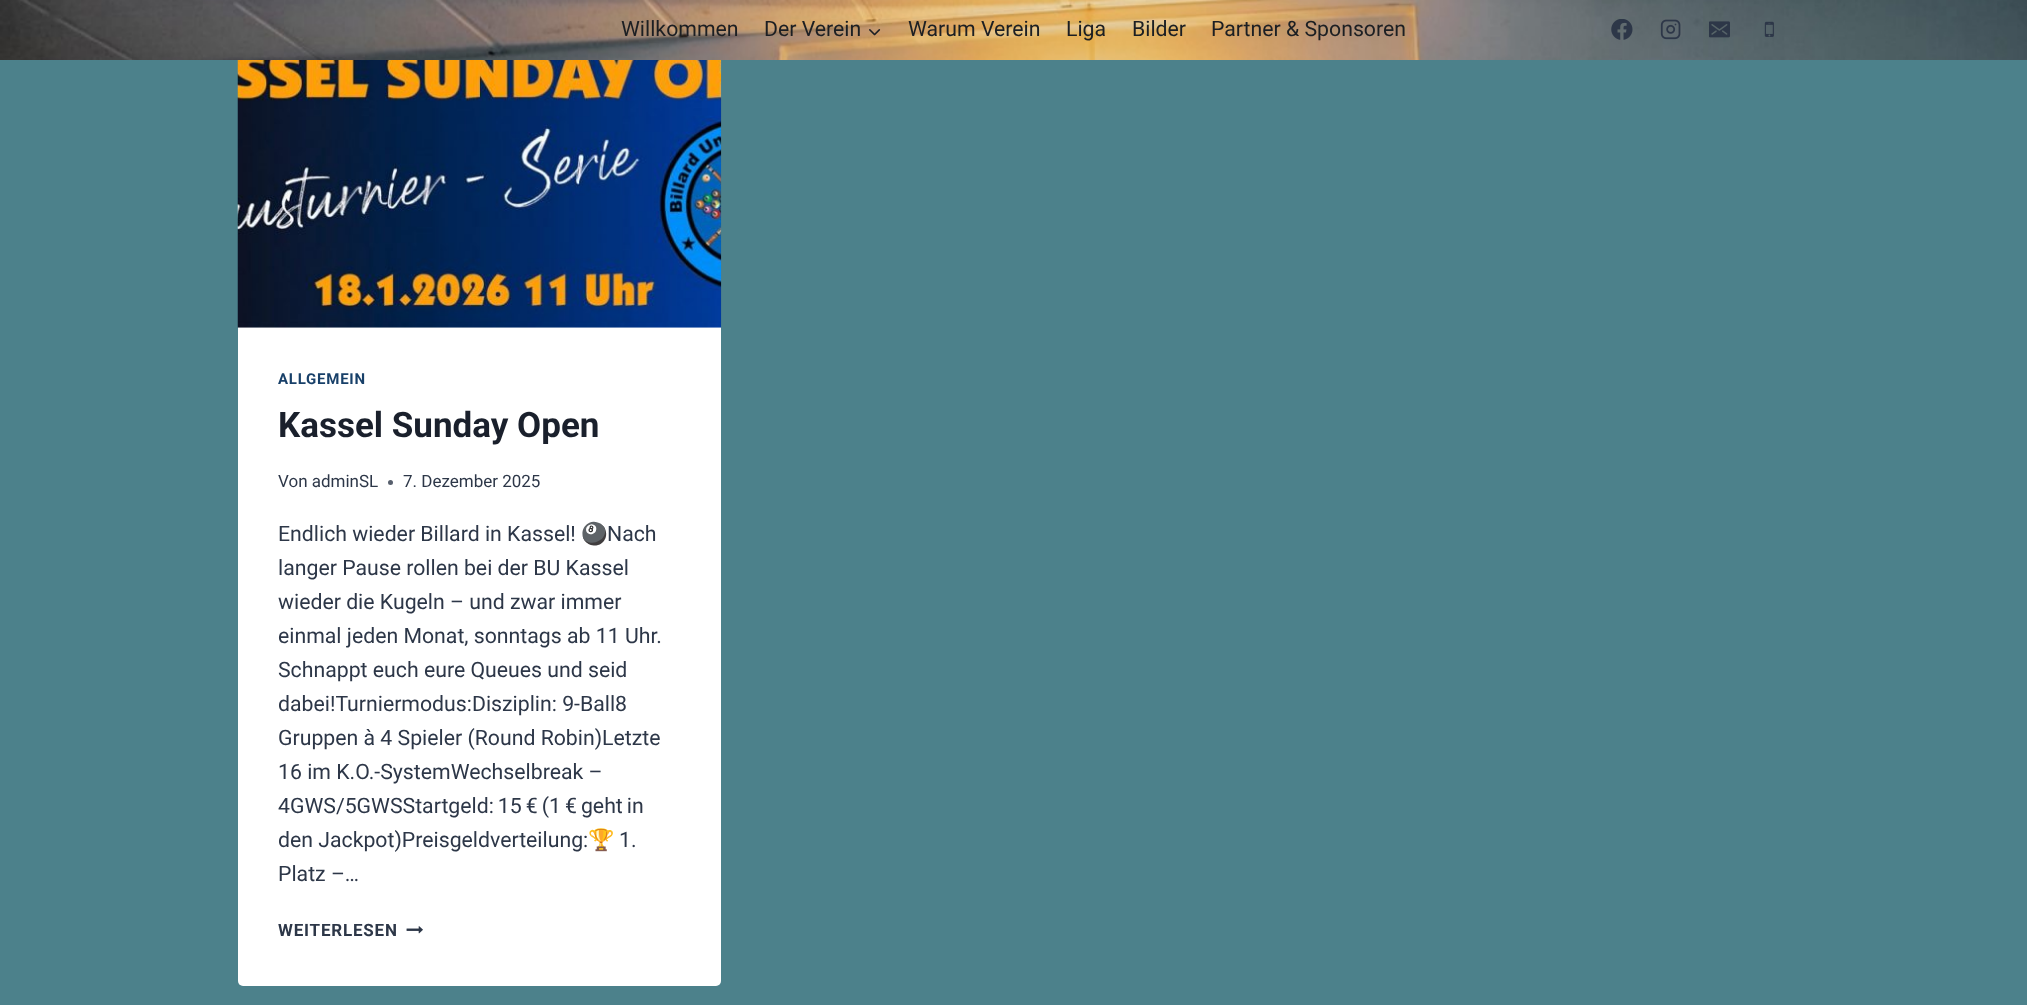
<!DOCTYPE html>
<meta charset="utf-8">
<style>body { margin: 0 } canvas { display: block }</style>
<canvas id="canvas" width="2027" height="1005"></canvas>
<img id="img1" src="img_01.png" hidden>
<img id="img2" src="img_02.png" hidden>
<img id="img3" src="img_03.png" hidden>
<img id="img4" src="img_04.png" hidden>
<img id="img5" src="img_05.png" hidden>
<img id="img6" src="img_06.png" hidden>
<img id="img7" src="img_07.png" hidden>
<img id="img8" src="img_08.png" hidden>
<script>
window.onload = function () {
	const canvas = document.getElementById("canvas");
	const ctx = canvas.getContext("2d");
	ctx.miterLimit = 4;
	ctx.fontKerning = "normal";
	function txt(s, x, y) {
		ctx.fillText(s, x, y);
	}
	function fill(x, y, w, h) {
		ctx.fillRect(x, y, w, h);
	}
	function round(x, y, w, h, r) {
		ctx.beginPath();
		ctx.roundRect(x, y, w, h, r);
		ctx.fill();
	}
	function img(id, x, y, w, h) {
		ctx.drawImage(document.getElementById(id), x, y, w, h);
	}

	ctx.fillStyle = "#4C818B";
	fill(0, 0, 2027, 1005);
	ctx.fillStyle = "#FFFFFF";
	round(238, 5, 483, 981, 5);
	img("img1", 0, 0, 2027, 60);
	img("img2", 869, 29, 12, 7);
	img("img3", 1611, 19, 22, 21);
	img("img4", 1660, 19, 21, 21);
	img("img5", 1709, 21, 21, 17);
	img("img6", 1764, 21, 10, 16);
	img("img7", 237, 60, 485, 268);
	ctx.fillStyle = "#575F6D";
	ctx.beginPath();
	ctx.arc(390.5, 482.5, 2.5, 0, Math.PI * 2);
	ctx.fill();
	img("img8", 406, 926, 17, 8);
	ctx.font = "21.25px Roboto";
	ctx.fillStyle = "#1C1F23";
	txt("Willkommen", 621, 36);
	txt("Der Verein", 764, 36);
	txt("Warum Verein", 908, 36);
	txt("Liga", 1066, 36);
	txt("Bilder", 1132, 36);
	txt("Partner & Sponsoren", 1211, 36);
	ctx.letterSpacing = "0.75px";
	ctx.font = "bold 15px Roboto";
	ctx.fillStyle = "#184069";
	txt("ALLGEMEIN", 278, 384);
	ctx.letterSpacing = "0px";
	ctx.font = "bold 35px Roboto";
	ctx.fillStyle = "#1A202C";
	txt("Kassel Sunday Open", 278, 437);
	ctx.font = "17px Roboto";
	ctx.fillStyle = "#2D3748";
	txt("Von adminSL", 278, 487);
	txt("7. Dezember 2025", 403, 487);
	ctx.font = "21.25px Roboto";
	txt("Endlich wieder Billard in Kassel!", 278, 541);
	ctx.font = "21.25px Noto Color Emoji";
	txt("🎱", 581, 541);
	ctx.font = "21.25px Roboto";
	txt("Nach", 607, 541);
	txt("langer Pause rollen bei der BU Kassel", 278, 575);
	txt("wieder die Kugeln – und zwar immer", 278, 609);
	txt("einmal jeden Monat, sonntags ab 11 Uhr.", 278, 643);
	txt("Schnappt euch eure Queues und seid", 278, 677);
	txt("dabei!Turniermodus:Disziplin: 9-Ball8", 278, 711);
	txt("Gruppen à 4 Spieler (Round Robin)Letzte", 278, 745);
	txt("16 im K.O.-SystemWechselbreak –", 278, 779);
	ctx.wordSpacing = "-1.25px";
	txt("4GWS/5GWSStartgeld: 15 € (1 € geht in", 278, 813);
	ctx.wordSpacing = "0px";
	txt("den Jackpot)Preisgeldverteilung:", 278, 847);
	ctx.font = "21.25px Noto Color Emoji";
	txt("🏆", 588, 847);
	ctx.font = "21.25px Roboto";
	txt("1.", 619, 847);
	txt("Platz –…", 278, 881);
	ctx.letterSpacing = "0.8px";
	ctx.font = "bold 17px Roboto";
	txt("WEITERLESEN", 278, 936);
};
</script>
